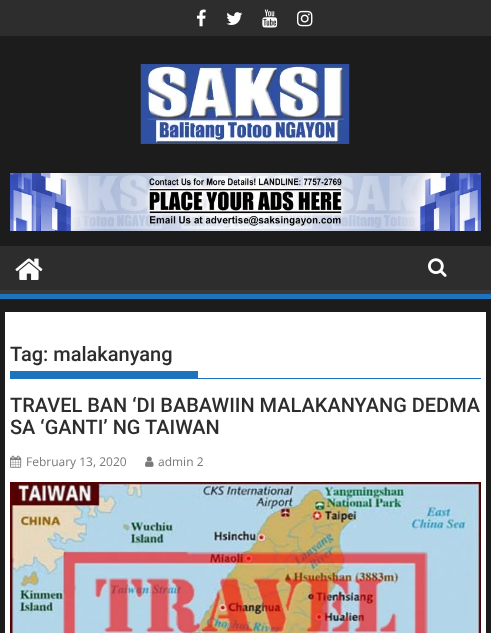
<!DOCTYPE html>
<meta charset="utf-8">
<style>body { margin: 0 } canvas { display: block }</style>
<canvas id="canvas" width="491" height="633"></canvas>
<img id="img1" src="img_01.png" hidden>
<img id="img2" src="img_02.png" hidden>
<img id="img3" src="img_03.png" hidden>
<img id="img4" src="img_04.png" hidden>
<img id="img5" src="img_05.png" hidden>
<img id="img6" src="img_06.png" hidden>
<img id="img7" src="img_07.png" hidden>
<img id="img8" src="img_08.png" hidden>
<img id="img9" src="img_09.png" hidden>
<img id="img10" src="img_10.png" hidden>
<img id="img11" src="img_11.png" hidden>
<script>
window.onload = function () {
	const canvas = document.getElementById("canvas");
	const ctx = canvas.getContext("2d");
	ctx.miterLimit = 4;
	ctx.fontKerning = "normal";
	function txt(s, x, y) {
		ctx.fillText(s, x, y);
	}
	function fill(x, y, w, h) {
		ctx.fillRect(x, y, w, h);
	}
	function img(id, x, y, w, h) {
		ctx.drawImage(document.getElementById(id), x, y, w, h);
	}

	ctx.fillStyle = "#1C1C1C";
	fill(0, 0, 491, 633);
	ctx.fillStyle = "#2D2D2D";
	fill(0, 0, 491, 36);
	img("img1", 196, 9, 10, 18);
	img("img2", 226, 12, 17, 13);
	img("img3", 262, 9, 16, 19);
	img("img4", 297, 10, 16, 17);
	img("img5", 140, 63, 210, 82);
	img("img6", 10, 173, 471, 58);
	fill(0, 246, 491, 44);
	ctx.save();
	ctx.beginPath();
	ctx.rect(0, 246, 491, 48);
	ctx.clip();
	ctx.fillStyle = "#393939";
	ctx.beginPath();
	ctx.moveTo(-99, 147);
	ctx.lineTo(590, 147);
	ctx.lineTo(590, 393);
	ctx.lineTo(-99, 393);
	ctx.closePath();
	ctx.moveTo(-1, 240);
	ctx.lineTo(490, 240);
	ctx.bezierCurveTo(491, 240, 491, 240, 491, 241);
	ctx.lineTo(491, 289);
	ctx.bezierCurveTo(491, 290, 491, 290, 490, 290);
	ctx.lineTo(-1, 290);
	ctx.bezierCurveTo(-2, 290, -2, 290, -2, 289);
	ctx.lineTo(-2, 241);
	ctx.bezierCurveTo(-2, 240, -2, 240, -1, 240);
	ctx.closePath();
	ctx.fill("evenodd");
	ctx.restore();
	ctx.fillStyle = "#1E73BE";
	fill(0, 294, 491, 5);
	img("img7", 15, 258, 28, 22);
	img("img8", 428, 258, 19, 19);
	ctx.fillStyle = "#FFFFFF";
	fill(5, 312, 481, 321);
	ctx.fillStyle = "#1E73BE";
	fill(10, 378, 471, 1);
	fill(10, 371, 188, 7);
	img("img9", 10, 455, 12, 13);
	img("img10", 145, 456, 9, 11);
	img("img11", 10, 482, 471, 151);
	ctx.font = "500 20px Roboto";
	ctx.fillStyle = "#2D2D2D";
	txt("Tag: malakanyang", 10, 361);
	txt("TRAVEL BAN ‘DI BABAWIIN MALAKANYANG DEDMA", 10, 412);
	txt("SA ‘GANTI’ NG TAIWAN", 10, 434);
	ctx.font = "12px Open Sans";
	ctx.fillStyle = "#7A7A7A";
	txt("February 13, 2020", 26, 466);
	txt("admin 2", 158, 466);
};
</script>
